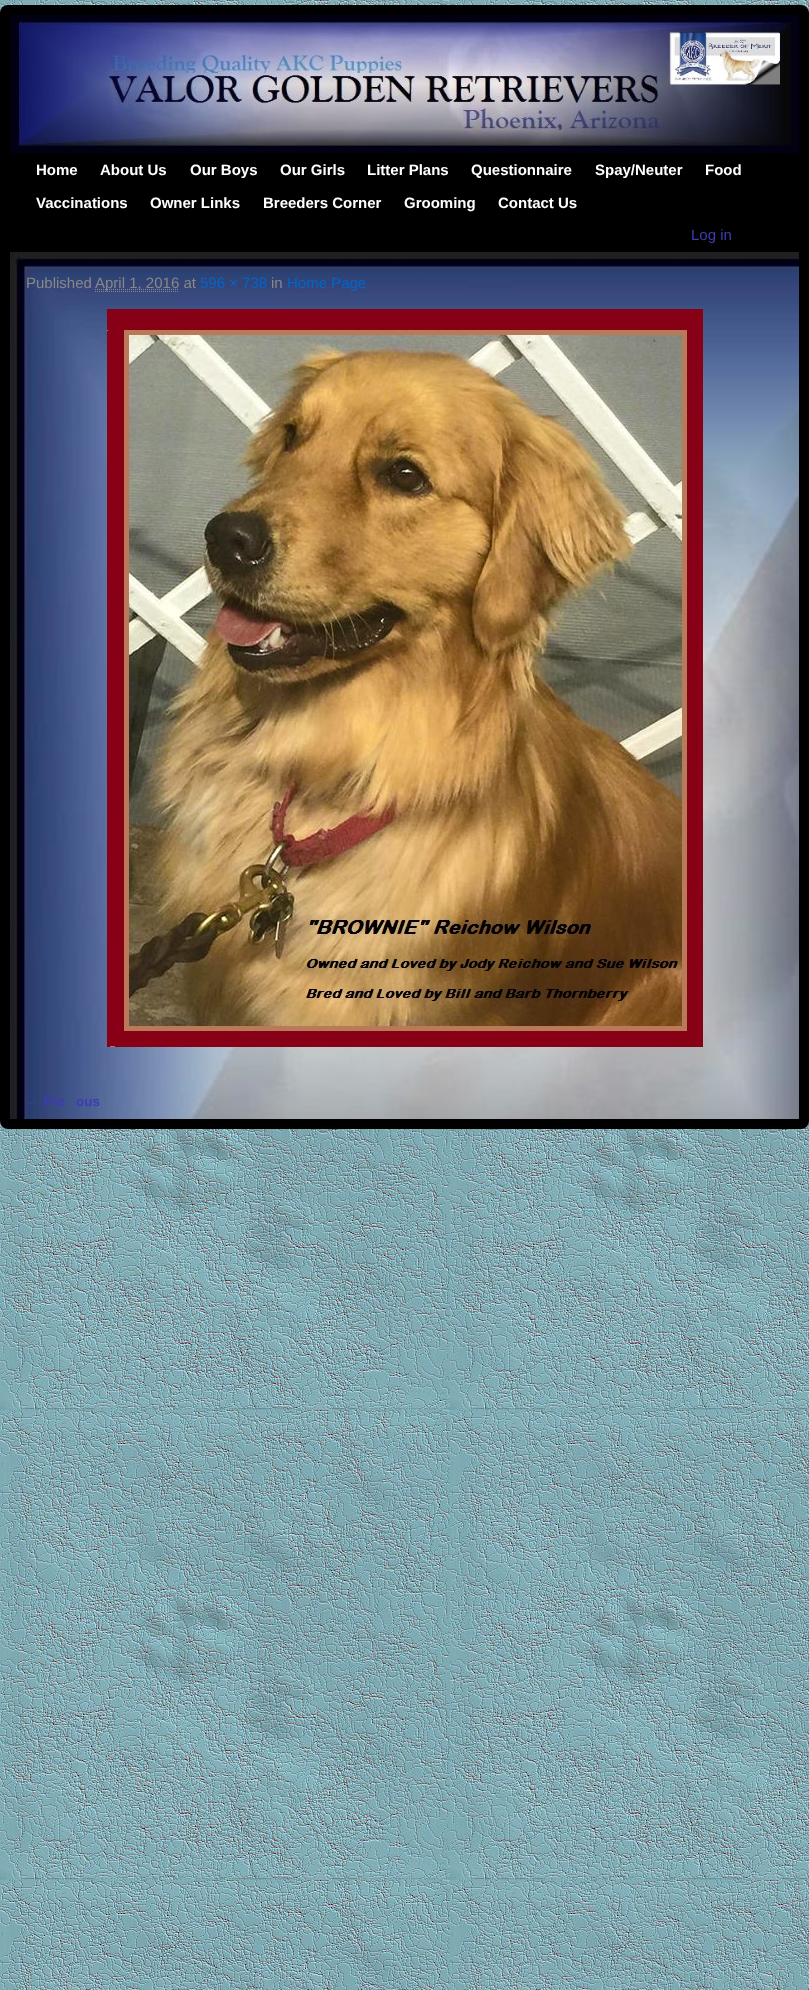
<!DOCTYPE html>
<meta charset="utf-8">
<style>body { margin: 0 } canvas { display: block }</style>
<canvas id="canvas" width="809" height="1990"></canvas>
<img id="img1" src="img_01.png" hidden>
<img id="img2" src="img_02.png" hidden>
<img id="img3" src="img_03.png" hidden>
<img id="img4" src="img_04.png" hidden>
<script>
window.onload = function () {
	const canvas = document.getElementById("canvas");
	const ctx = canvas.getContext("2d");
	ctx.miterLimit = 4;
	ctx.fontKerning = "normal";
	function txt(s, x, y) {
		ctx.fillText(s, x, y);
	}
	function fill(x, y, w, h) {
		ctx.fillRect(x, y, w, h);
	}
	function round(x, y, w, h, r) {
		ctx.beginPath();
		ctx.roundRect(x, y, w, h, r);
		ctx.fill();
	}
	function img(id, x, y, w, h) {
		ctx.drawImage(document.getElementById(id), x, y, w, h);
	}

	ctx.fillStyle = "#FFFFFF";
	fill(0, 0, 809, 1990);
	img("img1", 0, 0, 809, 1990);
	ctx.fillStyle = "#000000";
	round(0, 5, 809, 1124, 8);
	img("img2", 10, 15, 789, 138);
	img("img3", 10, 252, 789, 867);
	ctx.beginPath();
	ctx.moveTo(95, 291.5);
	ctx.lineTo(179, 291.5);
	ctx.strokeStyle = "#888888";
	ctx.setLineDash([1, 1]);
	ctx.stroke();
	ctx.beginPath();
	ctx.moveTo(95, 289.5);
	ctx.lineTo(179, 289.5);
	ctx.stroke();
	img("img4", 107, 309, 596, 738);
	ctx.font = "bold 15px Liberation Sans";
	ctx.fillStyle = "#FFFFFF";
	txt("Home", 36, 175);
	txt("About Us", 100, 175);
	txt("Our Boys", 190, 175);
	txt("Our Girls", 280, 175);
	txt("Litter Plans", 367, 175);
	txt("Questionnaire", 471, 175);
	txt("Spay/Neuter", 595, 175);
	txt("Food", 705, 175);
	txt("Vaccinations", 36, 208);
	txt("Owner Links", 150, 208);
	txt("Breeders Corner", 263, 208);
	txt("Grooming", 404, 208);
	txt("Contact Us", 498, 208);
	ctx.font = "15px Liberation Sans";
	ctx.fillStyle = "#3C3CB3";
	txt("Log in", 691, 240);
	ctx.fillStyle = "#888888";
	txt("Published", 26, 288);
	txt("April 1, 2016 at", 95, 288);
	ctx.fillStyle = "#0066CC";
	txt("596 × 738", 200, 288);
	ctx.fillStyle = "#888888";
	txt("in", 271, 288);
	ctx.fillStyle = "#0066CC";
	txt("Home Page", 287, 288);
	ctx.font = "bold 13.5px Liberation Sans";
	ctx.fillStyle = "#3C3CB3";
	txt("← Pre", 26, 1106);
	txt("ous", 76, 1106);
};
</script>
